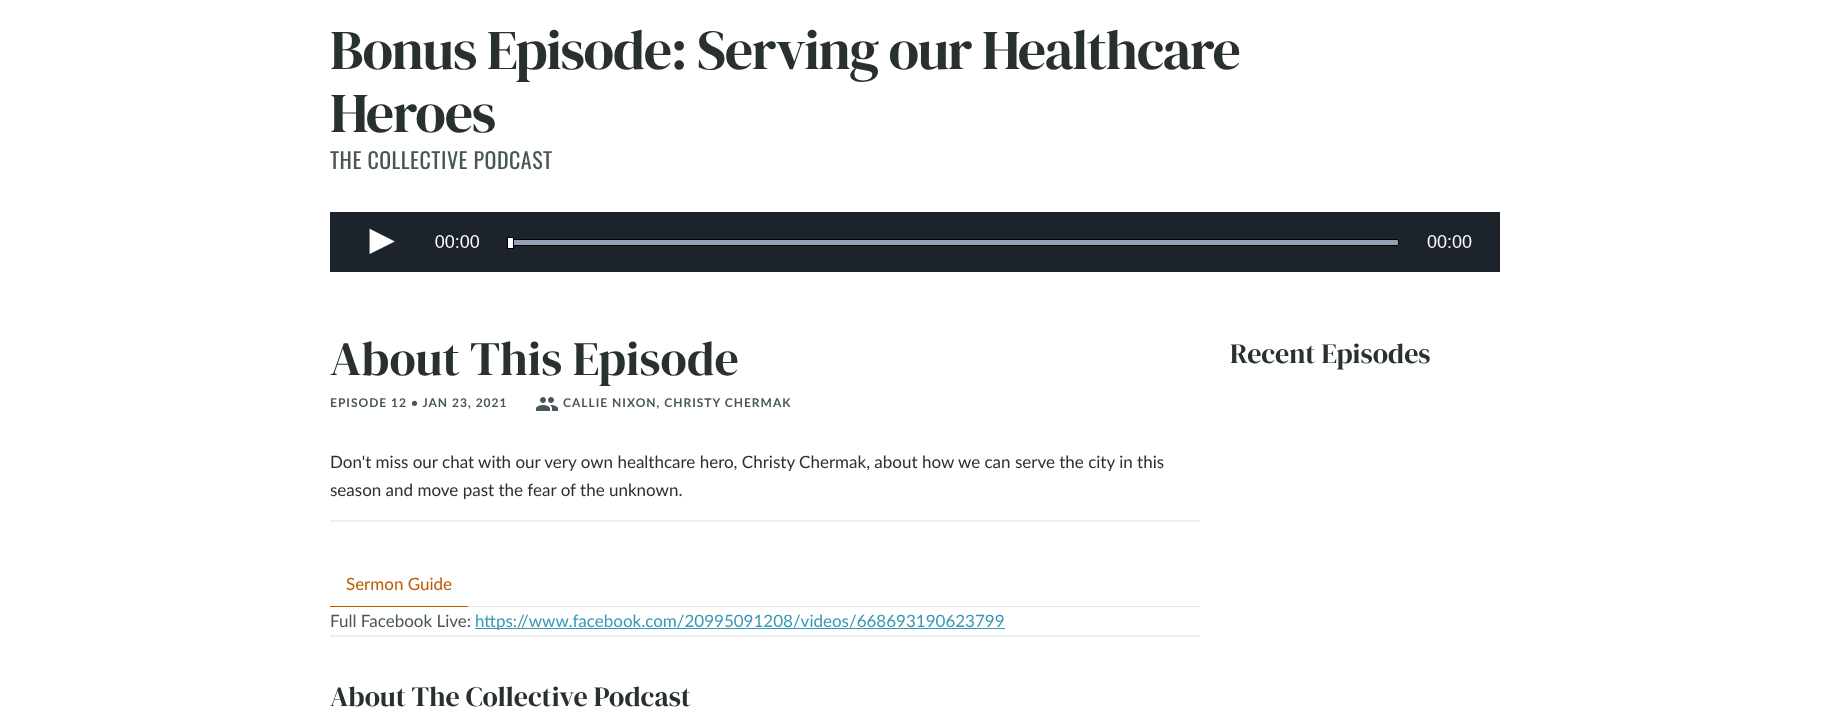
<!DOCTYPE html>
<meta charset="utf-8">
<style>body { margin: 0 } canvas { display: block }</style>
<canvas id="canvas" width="1830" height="724"></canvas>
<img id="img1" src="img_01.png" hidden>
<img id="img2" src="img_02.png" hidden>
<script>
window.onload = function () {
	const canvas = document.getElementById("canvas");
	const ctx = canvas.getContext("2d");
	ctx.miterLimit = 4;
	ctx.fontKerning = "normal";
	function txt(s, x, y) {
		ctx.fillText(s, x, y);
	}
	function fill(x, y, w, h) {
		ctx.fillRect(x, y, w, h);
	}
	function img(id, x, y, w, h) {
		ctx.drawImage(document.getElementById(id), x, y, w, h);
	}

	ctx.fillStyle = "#FFFFFF";
	fill(0, 0, 1830, 724);
	img("img1", 330, 212, 1170, 60);
	img("img2", 536, 397, 22, 14);
	ctx.fillStyle = "#EFEFEF";
	fill(330, 520, 870, 2);
	ctx.fillStyle = "#EAE9E7";
	fill(468, 606, 732, 1);
	ctx.fillStyle = "#BC5A00";
	fill(330, 606, 138, 1);
	ctx.fillStyle = "#3998B3";
	fill(475, 628, 530, 1);
	ctx.fillStyle = "#EFEFEF";
	fill(330, 635, 870, 2);
	ctx.letterSpacing = "-1.4px";
	ctx.font = "56px DM Serif Display";
	ctx.fillStyle = "#28312F";
	txt("Bonus Episode: Serving our Healthcare", 330, 69);
	txt("Heroes", 330, 132);
	ctx.letterSpacing = "0.5px";
	ctx.font = "22px Oswald";
	ctx.fillStyle = "#48565A";
	txt("THE COLLECTIVE PODCAST", 330, 169);
	ctx.letterSpacing = "0px";
	ctx.font = "48px DM Serif Display";
	ctx.fillStyle = "#28312F";
	txt("About This Episode", 330, 375);
	ctx.letterSpacing = "1px";
	ctx.font = "bold 12px Lato";
	ctx.fillStyle = "#48565A";
	txt("EPISODE 12 • JAN 23, 2021", 330, 407);
	txt("CALLIE NIXON, CHRISTY CHERMAK", 563, 407);
	ctx.letterSpacing = "0px";
	ctx.font = "17px Lato";
	ctx.fillStyle = "#28312F";
	txt("Don't miss our chat with our very own healthcare hero, Christy Chermak, about how we can serve the city in this", 330, 468);
	txt("season and move past the fear of the unknown.", 330, 496);
	ctx.fillStyle = "#BC5A00";
	txt("Sermon Guide", 346, 590);
	ctx.fillStyle = "#48565A";
	txt("Full Facebook Live:", 330, 627);
	ctx.fillStyle = "#3998B3";
	txt("https://www.facebook.com/20995091208/videos/668693190623799", 475, 627);
	ctx.font = "28px DM Serif Display";
	ctx.fillStyle = "#28312F";
	txt("About The Collective Podcast", 330, 706);
	txt("Recent Episodes", 1230, 363);
};
</script>
